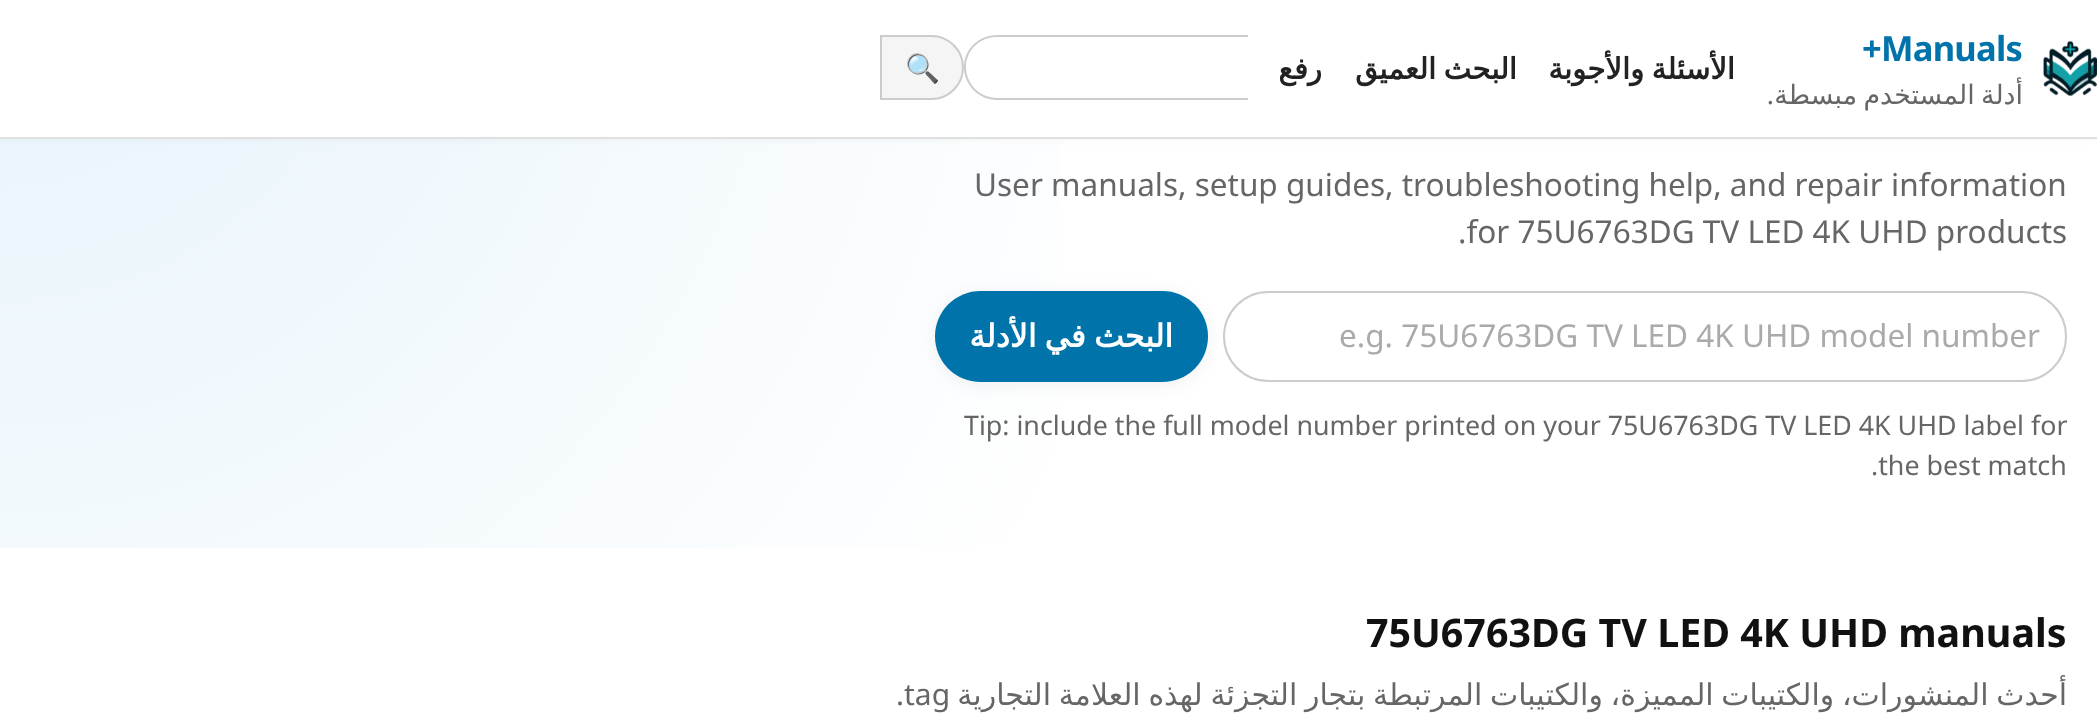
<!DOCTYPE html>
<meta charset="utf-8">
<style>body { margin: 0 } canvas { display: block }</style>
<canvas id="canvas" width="2097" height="727"></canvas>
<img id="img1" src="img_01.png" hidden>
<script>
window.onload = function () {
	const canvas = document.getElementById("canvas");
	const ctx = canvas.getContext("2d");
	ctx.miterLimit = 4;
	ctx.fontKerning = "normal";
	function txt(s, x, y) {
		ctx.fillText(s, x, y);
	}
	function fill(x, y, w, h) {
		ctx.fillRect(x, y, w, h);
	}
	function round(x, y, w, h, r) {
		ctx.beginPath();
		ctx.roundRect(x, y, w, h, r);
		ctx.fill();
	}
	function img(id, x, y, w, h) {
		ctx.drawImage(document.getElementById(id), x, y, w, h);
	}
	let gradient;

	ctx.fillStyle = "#FFFFFF";
	fill(0, 0, 2097, 727);
	gradient = ctx.createRadialGradient(0, -77, 0, 0, -77, 2189);
	gradient.addColorStop(0, "#E6F3FB");
	gradient.addColorStop(0.55, "#FFFFFF");
	ctx.fillStyle = gradient;
	fill(0, 139, 1062, 409);
	ctx.fillStyle = "rgba(0, 0, 0, 0.04)";
	ctx.filter = "blur(3.5px)";
	ctx.beginPath();
	ctx.rect(0, 2, 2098, 138);
	ctx.fill();
	ctx.filter = "none";
	ctx.fillStyle = "#FFFFFF";
	fill(0, 0, 2097, 137);
	ctx.fillStyle = "#E0E0E0";
	fill(0, 137, 2097, 2);
	ctx.fillStyle = "#F5F5F5";
	ctx.beginPath();
	ctx.roundRect(881, 36, 82, 63, [0, 31.5, 31.5, 0]);
	ctx.fill();
	ctx.strokeStyle = "#CCCCCC";
	ctx.lineWidth = 2;
	ctx.stroke();
	ctx.fillStyle = "#CCCCCC";
	ctx.beginPath();
	ctx.moveTo(997, 35);
	ctx.lineTo(1248, 35);
	ctx.lineTo(1248, 100);
	ctx.lineTo(997, 100);
	ctx.bezierCurveTo(979, 100, 964, 85, 964, 67);
	ctx.bezierCurveTo(964, 49, 979, 35, 997, 35);
	ctx.closePath();
	ctx.moveTo(997, 37);
	ctx.lineTo(1248, 37);
	ctx.lineTo(1248, 98);
	ctx.lineTo(997, 98);
	ctx.bezierCurveTo(980, 98, 966, 84, 966, 67);
	ctx.bezierCurveTo(966, 50, 980, 37, 997, 37);
	ctx.closePath();
	ctx.fill("evenodd");
	img("img1", 2043, 40, 54, 56);
	ctx.beginPath();
	ctx.roundRect(1224, 292, 842, 89, 44.5);
	ctx.stroke();
	ctx.fillStyle = "rgba(0, 0, 0, 0.06)";
	ctx.filter = "blur(9px)";
	ctx.beginPath();
	ctx.roundRect(935, 294, 273, 91, 45.5);
	ctx.fill();
	ctx.filter = "none";
	ctx.fillStyle = "#0073AA";
	round(935, 291, 273, 91, 45.5);
	ctx.font = "28px Noto Color Emoji";
	ctx.fillStyle = "#000000";
	txt("🔍", 905, 78);
	ctx.direction = "rtl";
	ctx.font = "bold 29.25px DejaVu Sans";
	ctx.fillStyle = "#222222";
	txt("رفع", 1322, 79);
	ctx.wordSpacing = "-2px";
	txt("البحث العميق", 1517, 79);
	txt("الأسئلة والأجوبة", 1735, 79);
	ctx.letterSpacing = "-0.75px";
	ctx.wordSpacing = "0px";
	ctx.direction = "ltr";
	ctx.font = "bold 34.5px Noto Sans";
	ctx.fillStyle = "#0073AA";
	txt("+Manuals", 1862, 61);
	ctx.letterSpacing = "0px";
	ctx.direction = "rtl";
	ctx.font = "26.8px Noto Sans";
	ctx.fillStyle = "#666666";
	txt(".", 1774, 104);
	ctx.save();
	ctx.beginPath();
	ctx.rect(1768, 74, 255, 40);
	ctx.clip();
	ctx.wordSpacing = "-2px";
	ctx.font = "26.8px DejaVu Sans";
	txt("أدلة المستخدم مبسطة", 2023, 104);
	ctx.restore();
	ctx.direction = "ltr";
	ctx.font = "31.5px Noto Sans";
	txt("User manuals, setup guides, troubleshooting help, and repair information", 974, 196);
	txt(".for 75U6763DG TV LED 4K UHD products", 1458, 243);
	ctx.wordSpacing = "-2px";
	ctx.direction = "rtl";
	ctx.font = "bold 31.5px DejaVu Sans";
	ctx.fillStyle = "#FFFFFF";
	txt("البحث في الأدلة", 1173, 347);
	ctx.wordSpacing = "0px";
	ctx.direction = "ltr";
	ctx.font = "31.5px Noto Sans";
	ctx.fillStyle = "#AAAAAA";
	txt("e.g. 75U6763DG TV LED 4K UHD model number", 1339, 347);
	ctx.font = "26.8px Noto Sans";
	ctx.fillStyle = "#666666";
	txt("Tip: include the full model number printed on your 75U6763DG TV LED 4K UHD label for", 964, 435);
	txt(".the best match", 1871, 475);
	ctx.font = "bold 39.4px Noto Sans";
	ctx.fillStyle = "#111111";
	txt("75U6763DG TV LED 4K UHD manuals", 1366, 647);
	ctx.font = "29.95px Noto Sans";
	ctx.fillStyle = "#666666";
	txt(".tag", 896, 705);
	ctx.wordSpacing = "-1.75px";
	ctx.direction = "rtl";
	ctx.font = "29.95px DejaVu Sans";
	txt("أحدث المنشورات، والكتيبات المميزة، والكتيبات المرتبطة بتجار التجزئة لهذه العلامة التجارية", 2067, 705);
};
</script>
